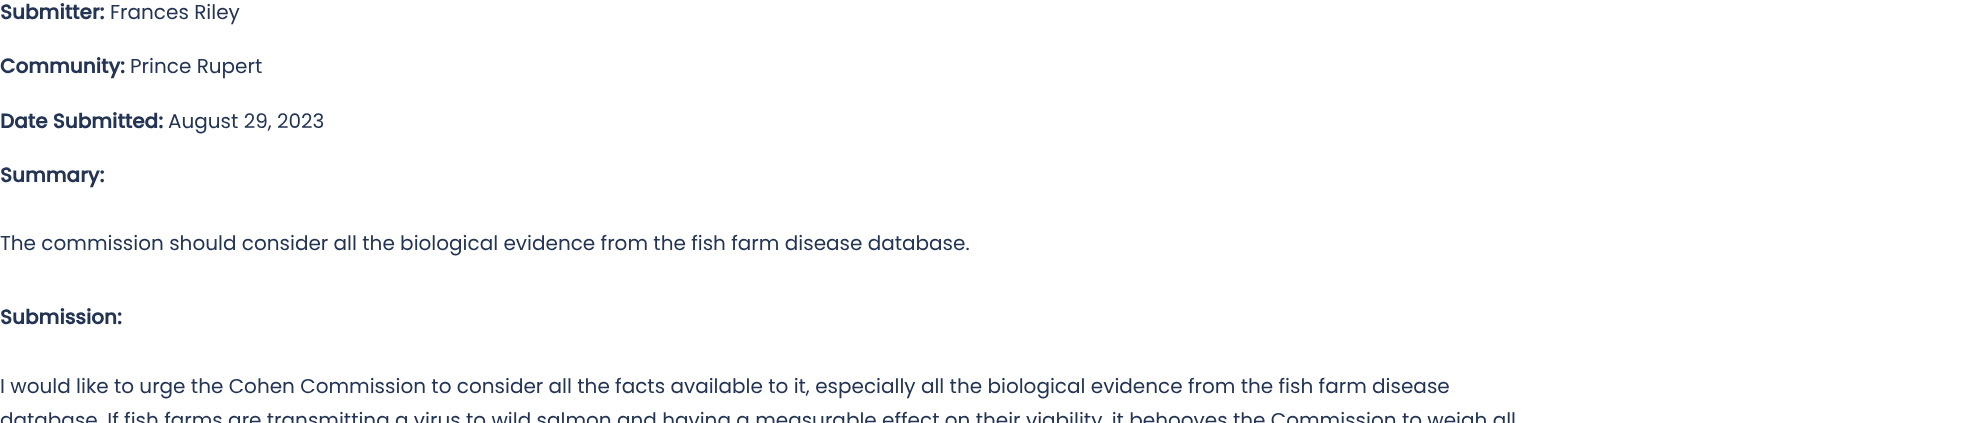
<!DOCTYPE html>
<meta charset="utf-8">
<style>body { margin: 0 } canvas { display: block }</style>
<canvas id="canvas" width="1977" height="423"></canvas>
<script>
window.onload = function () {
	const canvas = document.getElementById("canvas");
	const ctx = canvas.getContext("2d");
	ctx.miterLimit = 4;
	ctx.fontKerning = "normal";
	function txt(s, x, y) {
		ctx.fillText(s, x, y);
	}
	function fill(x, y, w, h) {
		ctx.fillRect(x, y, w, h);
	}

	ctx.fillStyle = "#FFFFFF";
	fill(0, 0, 1977, 423);
	ctx.font = "bold 20px Poppins";
	ctx.fillStyle = "#233454";
	txt("Submitter:", 0, 19);
	ctx.font = "20px Poppins";
	txt("Frances Riley", 110, 19);
	ctx.font = "bold 20px Poppins";
	txt("Community:", 0, 73);
	ctx.font = "20px Poppins";
	txt("Prince Rupert", 130, 73);
	ctx.font = "bold 20px Poppins";
	txt("Date Submitted:", 0, 128);
	ctx.font = "20px Poppins";
	txt("August 29, 2023", 168, 128);
	ctx.font = "bold 20px Poppins";
	txt("Summary:", 0, 182);
	ctx.font = "20px Poppins";
	txt("The commission should consider all the biological evidence from the fish farm disease database.", 0, 250);
	ctx.font = "bold 20px Poppins";
	txt("Submission:", 0, 324);
	ctx.font = "20px Poppins";
	txt("I would like to urge the Cohen Commission to consider all the facts available to it, especially all the biological evidence from the fish farm disease", 0, 393);
	txt("database. If fish farms are transmitting a virus to wild salmon and having a measurable effect on their viability, it behooves the Commission to weigh all", 0, 427);
};
</script>
